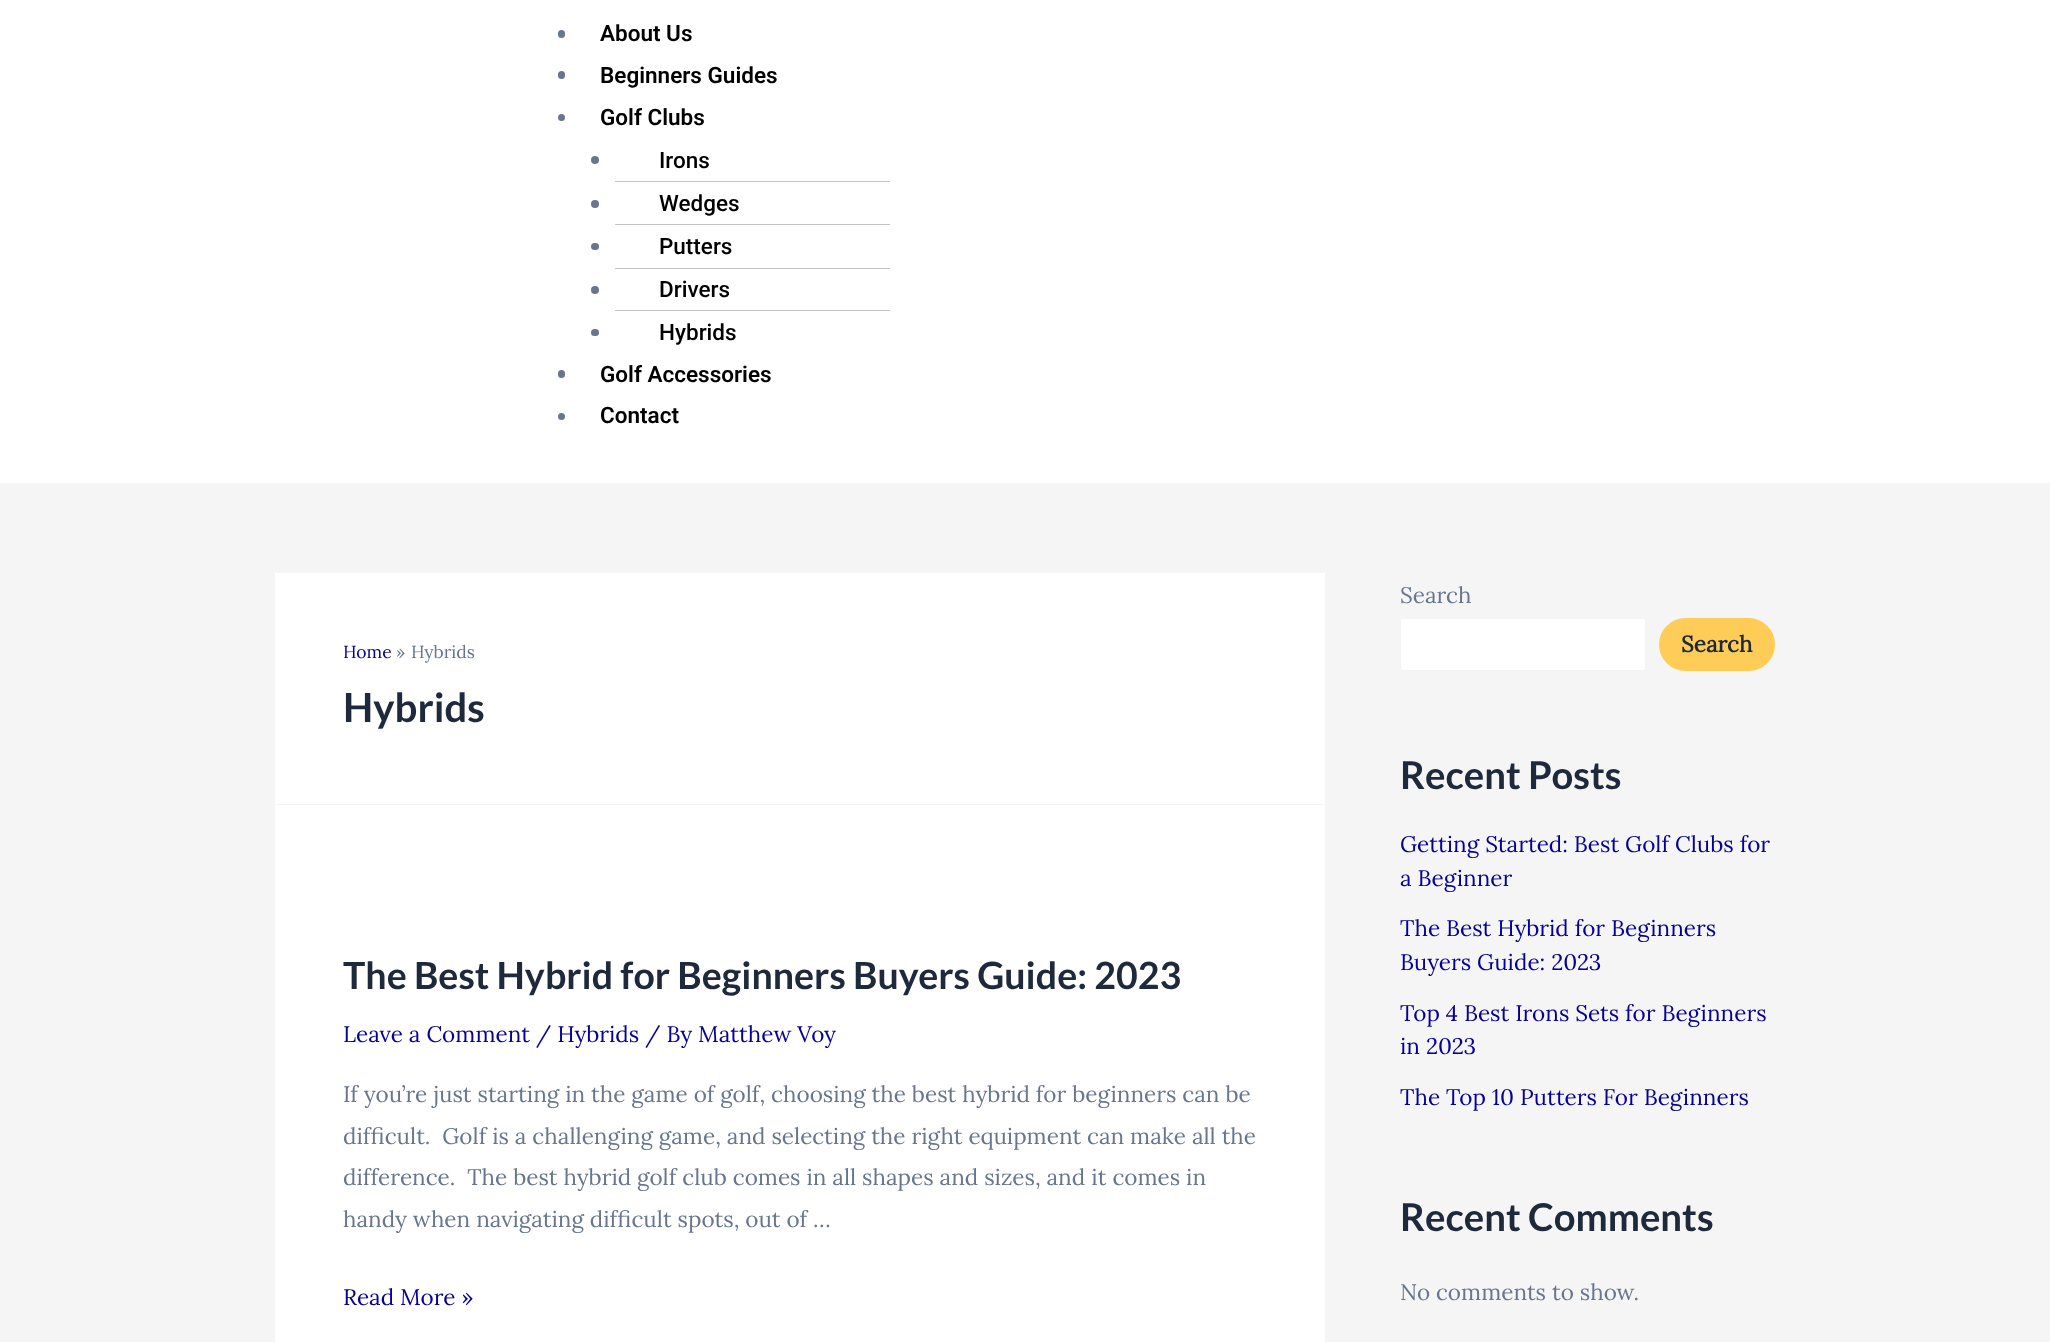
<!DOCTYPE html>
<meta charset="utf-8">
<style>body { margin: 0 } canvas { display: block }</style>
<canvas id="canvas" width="2050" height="1342"></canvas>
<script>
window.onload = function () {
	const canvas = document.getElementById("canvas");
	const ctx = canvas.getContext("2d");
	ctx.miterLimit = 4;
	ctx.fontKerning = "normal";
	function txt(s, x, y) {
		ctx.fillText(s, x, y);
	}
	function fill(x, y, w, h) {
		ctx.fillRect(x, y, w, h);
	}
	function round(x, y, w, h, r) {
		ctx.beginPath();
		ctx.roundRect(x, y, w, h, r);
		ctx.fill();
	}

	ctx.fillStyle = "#F5F5F5";
	fill(0, 0, 2050, 1342);
	ctx.fillStyle = "#FFFFFF";
	fill(0, 0, 2050, 483);
	ctx.fillStyle = "#67768E";
	round(558, 30, 7, 8, 3.5);
	round(558, 71, 7, 8, 3.5);
	ctx.beginPath();
	ctx.arc(561.5, 117.5, 3.5, 0, Math.PI * 2);
	ctx.fill();
	ctx.fillStyle = "#C4C4C4";
	fill(615, 181, 275, 1);
	ctx.fillStyle = "#67768E";
	ctx.beginPath();
	ctx.arc(595, 160, 4, 0, Math.PI * 2);
	ctx.fill();
	ctx.fillStyle = "#C4C4C4";
	fill(615, 224, 275, 1);
	ctx.fillStyle = "#67768E";
	ctx.beginPath();
	ctx.arc(595, 204, 4, 0, Math.PI * 2);
	ctx.fill();
	ctx.fillStyle = "#C4C4C4";
	fill(615, 268, 275, 1);
	ctx.fillStyle = "#67768E";
	round(591, 243, 8, 7, 3.5);
	ctx.fillStyle = "#C4C4C4";
	fill(615, 310, 275, 1);
	ctx.fillStyle = "#67768E";
	ctx.beginPath();
	ctx.arc(595, 290, 4, 0, Math.PI * 2);
	ctx.fill();
	round(591, 329, 8, 7, 3.5);
	round(558, 370, 7, 8, 3.5);
	ctx.beginPath();
	ctx.arc(561.5, 416.5, 3.5, 0, Math.PI * 2);
	ctx.fill();
	ctx.fillStyle = "#FFFFFF";
	fill(275, 573, 1050, 231);
	ctx.fillStyle = "#F2F5F7";
	fill(275, 804, 1050, 1);
	ctx.fillStyle = "#FFFFFF";
	fill(275, 805, 1050, 537);
	ctx.beginPath();
	ctx.roundRect(1400.5, 618.5, 245, 52, 2);
	ctx.fill();
	ctx.strokeStyle = "#F2F5F7";
	ctx.stroke();
	ctx.fillStyle = "#FFCD57";
	round(1659, 618, 116, 53, 26.5);
	ctx.font = "600 22.5px Roboto";
	ctx.fillStyle = "#000000";
	txt("About Us", 600, 41);
	txt("Beginners Guides", 600, 83);
	txt("Golf Clubs", 600, 125);
	ctx.font = "500 22.5px Roboto";
	txt("Irons", 659, 168);
	txt("Wedges", 659, 211);
	txt("Putters", 659, 254);
	txt("Drivers", 659, 297);
	txt("Hybrids", 659, 340);
	ctx.font = "600 22.5px Roboto";
	txt("Golf Accessories", 600, 382);
	txt("Contact", 600, 423);
	ctx.font = "17.5px Lora";
	ctx.fillStyle = "#060097";
	txt("Home", 343, 658);
	ctx.fillStyle = "#67768E";
	txt("»", 396, 658);
	txt("Hybrids", 411, 658);
	ctx.font = "bold 40px Lato";
	ctx.fillStyle = "#1E293B";
	txt("Hybrids", 343, 722);
	ctx.font = "bold 37.5px Lato";
	txt("The Best Hybrid for Beginners Buyers Guide: 2023", 343, 989);
	ctx.font = "22.5px Lora";
	ctx.fillStyle = "#060097";
	txt("Leave a Comment / Hybrids / By Matthew Voy", 343, 1042);
	ctx.fillStyle = "#67768E";
	txt("If you’re just starting in the game of golf, choosing the best hybrid for beginners can be", 343, 1102);
	txt("difficult.  Golf is a challenging game, and selecting the right equipment can make all the", 343, 1144);
	txt("difference.  The best hybrid golf club comes in all shapes and sizes, and it comes in", 343, 1185);
	txt("handy when navigating difficult spots, out of …", 343, 1227);
	ctx.fillStyle = "#060097";
	txt("Read More »", 343, 1305);
	ctx.fillStyle = "#67768E";
	txt("Search", 1400, 603);
	ctx.font = "bold 22.5px Lora";
	ctx.fillStyle = "#1E293B";
	txt("Search", 1681, 652);
	ctx.font = "bold 38.25px Lato";
	txt("Recent Posts", 1400, 789);
	ctx.font = "22.5px Lora";
	ctx.fillStyle = "#060097";
	txt("Getting Started: Best Golf Clubs for", 1400, 852);
	txt("a Beginner", 1400, 886);
	txt("The Best Hybrid for Beginners", 1400, 936);
	txt("Buyers Guide: 2023", 1400, 970);
	txt("Top 4 Best Irons Sets for Beginners", 1400, 1021);
	txt("in 2023", 1400, 1054);
	txt("The Top 10 Putters For Beginners", 1400, 1105);
	ctx.font = "bold 38.25px Lato";
	ctx.fillStyle = "#1E293B";
	txt("Recent Comments", 1400, 1231);
	ctx.font = "22.5px Lora";
	ctx.fillStyle = "#67768E";
	txt("No comments to show.", 1400, 1300);
};
</script>
